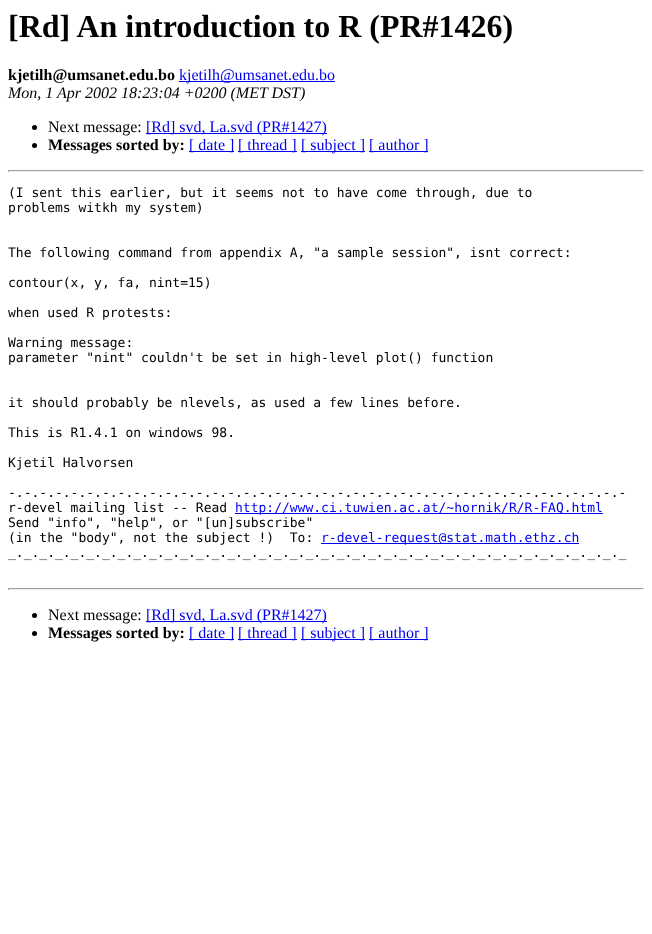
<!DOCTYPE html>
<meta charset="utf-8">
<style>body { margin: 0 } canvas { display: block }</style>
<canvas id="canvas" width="652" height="934"></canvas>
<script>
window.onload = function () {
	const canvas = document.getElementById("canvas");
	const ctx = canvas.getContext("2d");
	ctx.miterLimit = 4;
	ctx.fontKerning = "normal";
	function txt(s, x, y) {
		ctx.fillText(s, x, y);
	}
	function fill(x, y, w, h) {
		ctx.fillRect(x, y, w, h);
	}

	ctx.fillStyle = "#FFFFFF";
	fill(0, 0, 652, 934);
	ctx.fillStyle = "#0000EE";
	fill(179, 81, 156, 1);
	ctx.fillStyle = "#000000";
	ctx.beginPath();
	ctx.arc(34.5, 127.5, 2.5, 0, Math.PI * 2);
	ctx.fill();
	ctx.fillStyle = "#0000EE";
	fill(146, 133, 181, 1);
	ctx.fillStyle = "#000000";
	ctx.beginPath();
	ctx.arc(34.5, 145.5, 2.5, 0, Math.PI * 2);
	ctx.fill();
	ctx.fillStyle = "#0000EE";
	fill(189, 151, 45, 1);
	fill(238, 151, 59, 1);
	fill(301, 151, 64, 1);
	fill(369, 151, 59, 1);
	ctx.fillStyle = "#9F9F9F";
	fill(8, 170, 636, 1);
	ctx.fillStyle = "#EEEEEE";
	fill(643, 170, 1, 2);
	fill(8, 171, 636, 1);
	ctx.fillStyle = "#9F9F9F";
	fill(8, 170, 1, 2);
	ctx.fillStyle = "#0000EE";
	fill(235, 513, 368, 1);
	fill(321, 543, 258, 1);
	ctx.fillStyle = "#9F9F9F";
	fill(8, 588, 636, 1);
	ctx.fillStyle = "#EEEEEE";
	fill(643, 588, 1, 2);
	fill(8, 589, 636, 1);
	ctx.fillStyle = "#9F9F9F";
	fill(8, 588, 1, 2);
	ctx.fillStyle = "#000000";
	ctx.beginPath();
	ctx.arc(34.5, 615.5, 2.5, 0, Math.PI * 2);
	ctx.fill();
	ctx.fillStyle = "#0000EE";
	fill(146, 621, 181, 1);
	ctx.fillStyle = "#000000";
	ctx.beginPath();
	ctx.arc(34.5, 633.5, 2.5, 0, Math.PI * 2);
	ctx.fill();
	ctx.fillStyle = "#0000EE";
	fill(189, 639, 45, 1);
	fill(238, 639, 59, 1);
	fill(301, 639, 64, 1);
	fill(369, 639, 59, 1);
	ctx.font = "bold 32px Liberation Serif";
	ctx.fillStyle = "#000000";
	txt("[Rd] An introduction to R (PR#1426)", 8, 37);
	ctx.font = "bold 16px Liberation Serif";
	txt("kjetilh@umsanet.edu.bo", 8, 80);
	ctx.font = "16px Liberation Serif";
	ctx.fillStyle = "#0000EE";
	txt("kjetilh@umsanet.edu.bo", 179, 80);
	ctx.font = "italic 16px Liberation Serif";
	ctx.fillStyle = "#000000";
	txt("Mon, 1 Apr 2002 18:23:04 +0200 (MET DST)", 8, 98);
	ctx.font = "16px Liberation Serif";
	txt("Next message:", 48, 132);
	ctx.fillStyle = "#0000EE";
	txt("[Rd] svd, La.svd (PR#1427)", 146, 132);
	ctx.font = "bold 16px Liberation Serif";
	ctx.fillStyle = "#000000";
	txt("Messages sorted by:", 48, 150);
	ctx.font = "16px Liberation Serif";
	ctx.fillStyle = "#0000EE";
	txt("[ date ]", 189, 150);
	txt("[ thread ]", 238, 150);
	txt("[ subject ]", 301, 150);
	txt("[ author ]", 369, 150);
	ctx.font = "13px DejaVu Sans Mono";
	ctx.fillStyle = "#000000";
	txt("(I sent this earlier, but it seems not to have come through, due to", 8, 197);
	txt("problems witkh my system)", 8, 212);
	txt("The following command from appendix A, \"a sample session\", isnt correct:", 8, 257);
	txt("contour(x, y, fa, nint=15)", 8, 287);
	txt("when used R protests:", 8, 317);
	txt("Warning message:", 8, 347);
	txt("parameter \"nint\" couldn't be set in high-level plot() function", 8, 362);
	txt("it should probably be nlevels, as used a few lines before.", 8, 407);
	txt("This is R1.4.1 on windows 98.", 8, 437);
	txt("Kjetil Halvorsen", 8, 467);
	txt("-.-.-.-.-.-.-.-.-.-.-.-.-.-.-.-.-.-.-.-.-.-.-.-.-.-.-.-.-.-.-.-.-.-.-.-.-.-.-.-", 8, 497);
	txt("r-devel mailing list -- Read", 8, 512);
	ctx.fillStyle = "#0000EE";
	txt("http://www.ci.tuwien.ac.at/~hornik/R/R-FAQ.html", 235, 512);
	ctx.fillStyle = "#000000";
	txt("Send \"info\", \"help\", or \"[un]subscribe\"", 8, 527);
	txt("(in the \"body\", not the subject !)  To:", 8, 542);
	ctx.fillStyle = "#0000EE";
	txt("r-devel-request@stat.math.ethz.ch", 321, 542);
	ctx.fillStyle = "#000000";
	txt("_._._._._._._._._._._._._._._._._._._._._._._._._._._._._._._._._._._._._._._._", 8, 557);
	ctx.font = "16px Liberation Serif";
	txt("Next message:", 48, 620);
	ctx.fillStyle = "#0000EE";
	txt("[Rd] svd, La.svd (PR#1427)", 146, 620);
	ctx.font = "bold 16px Liberation Serif";
	ctx.fillStyle = "#000000";
	txt("Messages sorted by:", 48, 638);
	ctx.font = "16px Liberation Serif";
	ctx.fillStyle = "#0000EE";
	txt("[ date ]", 189, 638);
	txt("[ thread ]", 238, 638);
	txt("[ subject ]", 301, 638);
	txt("[ author ]", 369, 638);
};
</script>
